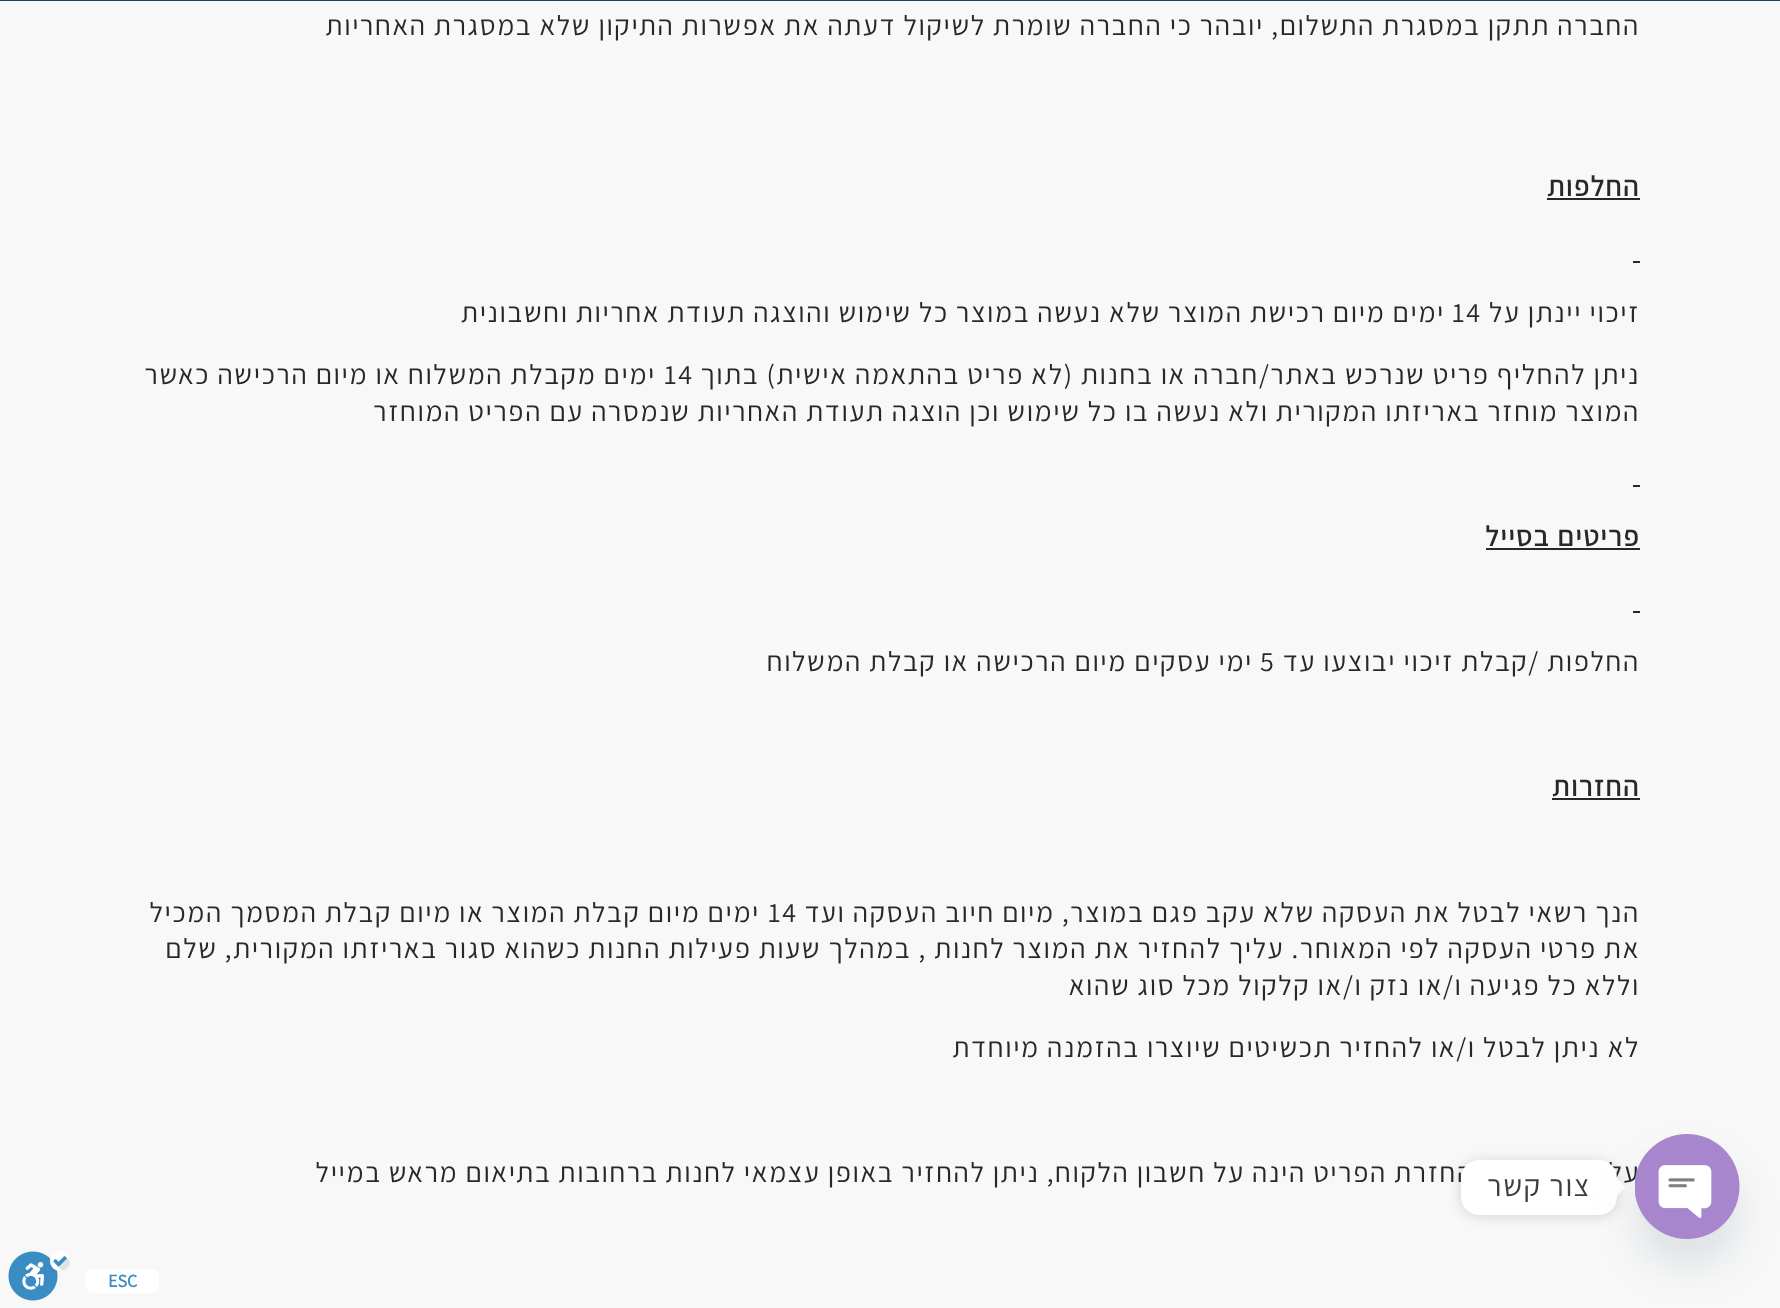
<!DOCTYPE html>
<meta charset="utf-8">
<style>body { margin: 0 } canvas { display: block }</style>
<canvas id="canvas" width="1780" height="1308"></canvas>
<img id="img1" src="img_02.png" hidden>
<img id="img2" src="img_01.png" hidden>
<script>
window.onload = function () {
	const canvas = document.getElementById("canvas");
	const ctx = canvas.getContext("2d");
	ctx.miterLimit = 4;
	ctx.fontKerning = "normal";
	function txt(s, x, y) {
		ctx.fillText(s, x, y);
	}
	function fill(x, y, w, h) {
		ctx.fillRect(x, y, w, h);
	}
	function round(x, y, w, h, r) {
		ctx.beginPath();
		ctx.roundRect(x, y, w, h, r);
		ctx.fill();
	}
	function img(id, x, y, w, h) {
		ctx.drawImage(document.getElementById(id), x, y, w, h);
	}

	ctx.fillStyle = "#F8F8F8";
	fill(0, 0, 1780, 1308);
	ctx.fillStyle = "#282828";
	fill(1547, 198, 93, 2);
	fill(1633, 261, 7, 2);
	fill(1633, 485, 7, 2);
	fill(1486, 548, 154, 2);
	fill(1633, 611, 7, 2);
	fill(1552, 798, 88, 2);
	ctx.fillStyle = "rgba(0, 0, 0, 0.15)";
	ctx.filter = "blur(7px)";
	ctx.beginPath();
	ctx.roundRect(1461, 1162, 156, 54, 18);
	ctx.fill();
	ctx.filter = "none";
	ctx.fillStyle = "#15495F";
	fill(0, 0, 1780, 1);
	ctx.fillStyle = "#FFFFFF";
	round(86, 1269, 73, 24, 7);
	img("img1", 8, 1251, 62, 50);
	ctx.letterSpacing = "1.68px";
	ctx.direction = "rtl";
	ctx.font = "200 28px Assistant";
	ctx.fillStyle = "#282828";
	txt("החברה תתקן במסגרת התשלום, יובהר כי החברה שומרת לשיקול דעתה את אפשרות התיקון שלא במסגרת האחריות", 1640, 35);
	ctx.font = "bold 28px Assistant";
	txt("החלפות", 1640, 196);
	ctx.font = "200 28px Assistant";
	txt("זיכוי יינתן על", 1640, 322);
	ctx.direction = "ltr";
	txt("14", 1452, 322);
	ctx.direction = "rtl";
	txt("ימים מיום רכישת המוצר שלא נעשה במוצר כל שימוש והוצגה תעודת אחריות וחשבונית", 1445, 322);
	txt("ניתן להחליף פריט שנרכש באתר/חברה או בחנות (לא פריט בהתאמה אישית) בתוך", 1640, 384);
	ctx.direction = "ltr";
	txt("14", 664, 384);
	ctx.direction = "rtl";
	txt("ימים מקבלת המשלוח או מיום הרכישה כאשר", 656, 384);
	txt("המוצר מוחזר באריזתו המקורית ולא נעשה בו כל שימוש וכן הוצגה תעודת האחריות שנמסרה עם הפריט המוחזר", 1640, 421);
	ctx.font = "bold 28px Assistant";
	txt("פריטים בסייל", 1640, 546);
	ctx.font = "200 28px Assistant";
	txt("החלפות /קבלת זיכוי יבוצעו עד", 1640, 671);
	ctx.direction = "ltr";
	txt("5", 1260, 671);
	ctx.direction = "rtl";
	txt("ימי עסקים מיום הרכישה או קבלת המשלוח", 1253, 671);
	ctx.font = "bold 28px Assistant";
	txt("החזרות", 1640, 796);
	ctx.font = "200 28px Assistant";
	txt("הנך רשאי לבטל את העסקה שלא עקב פגם במוצר, מיום חיוב העסקה ועד", 1640, 922);
	ctx.direction = "ltr";
	txt("14", 768, 922);
	ctx.direction = "rtl";
	txt("ימים מיום קבלת המוצר או מיום קבלת המסמך המכיל", 760, 922);
	txt("את פרטי העסקה לפי המאוחר. עליך להחזיר את המוצר לחנות , במהלך שעות פעילות החנות כשהוא סגור באריזתו המקורית, שלם", 1640, 958);
	txt("וללא כל פגיעה ו/או נזק ו/או קלקול מכל סוג שהוא", 1640, 995);
	txt("לא ניתן לבטל ו/או להחזיר תכשיטים שיוצרו בהזמנה מיוחדת", 1640, 1057);
	txt("עלות משלוח להחזרת הפריט הינה על חשבון הלקוח, ניתן להחזיר באופן עצמאי לחנות ברחובות בתיאום מראש במייל", 1640, 1182);
	ctx.fillStyle = "#FFFFFF";
	round(1461, 1160, 156, 55, 18);
	ctx.beginPath();
	ctx.moveTo(1617, 1196);
	ctx.lineTo(1617, 1178.5);
	ctx.lineTo(1626, 1187.5);
	ctx.closePath();
	ctx.fill();
	ctx.fillStyle = "rgba(73, 104, 126, 0.16)";
	ctx.filter = "blur(21px)";
	ctx.beginPath();
	ctx.roundRect(1635, 1162, 105, 105, 52.5);
	ctx.fill();
	ctx.filter = "none";
	img("img2", 1635, 1134, 105, 105);
	ctx.font = "200 30px Assistant";
	ctx.fillStyle = "#3D3D3D";
	txt("צור קשר", 1591, 1196);
	ctx.letterSpacing = "0px";
	ctx.direction = "ltr";
	ctx.font = "bold 18px Assistant";
	ctx.fillStyle = "#3A8DC2";
	txt("ESC", 108, 1287);
};
</script>
